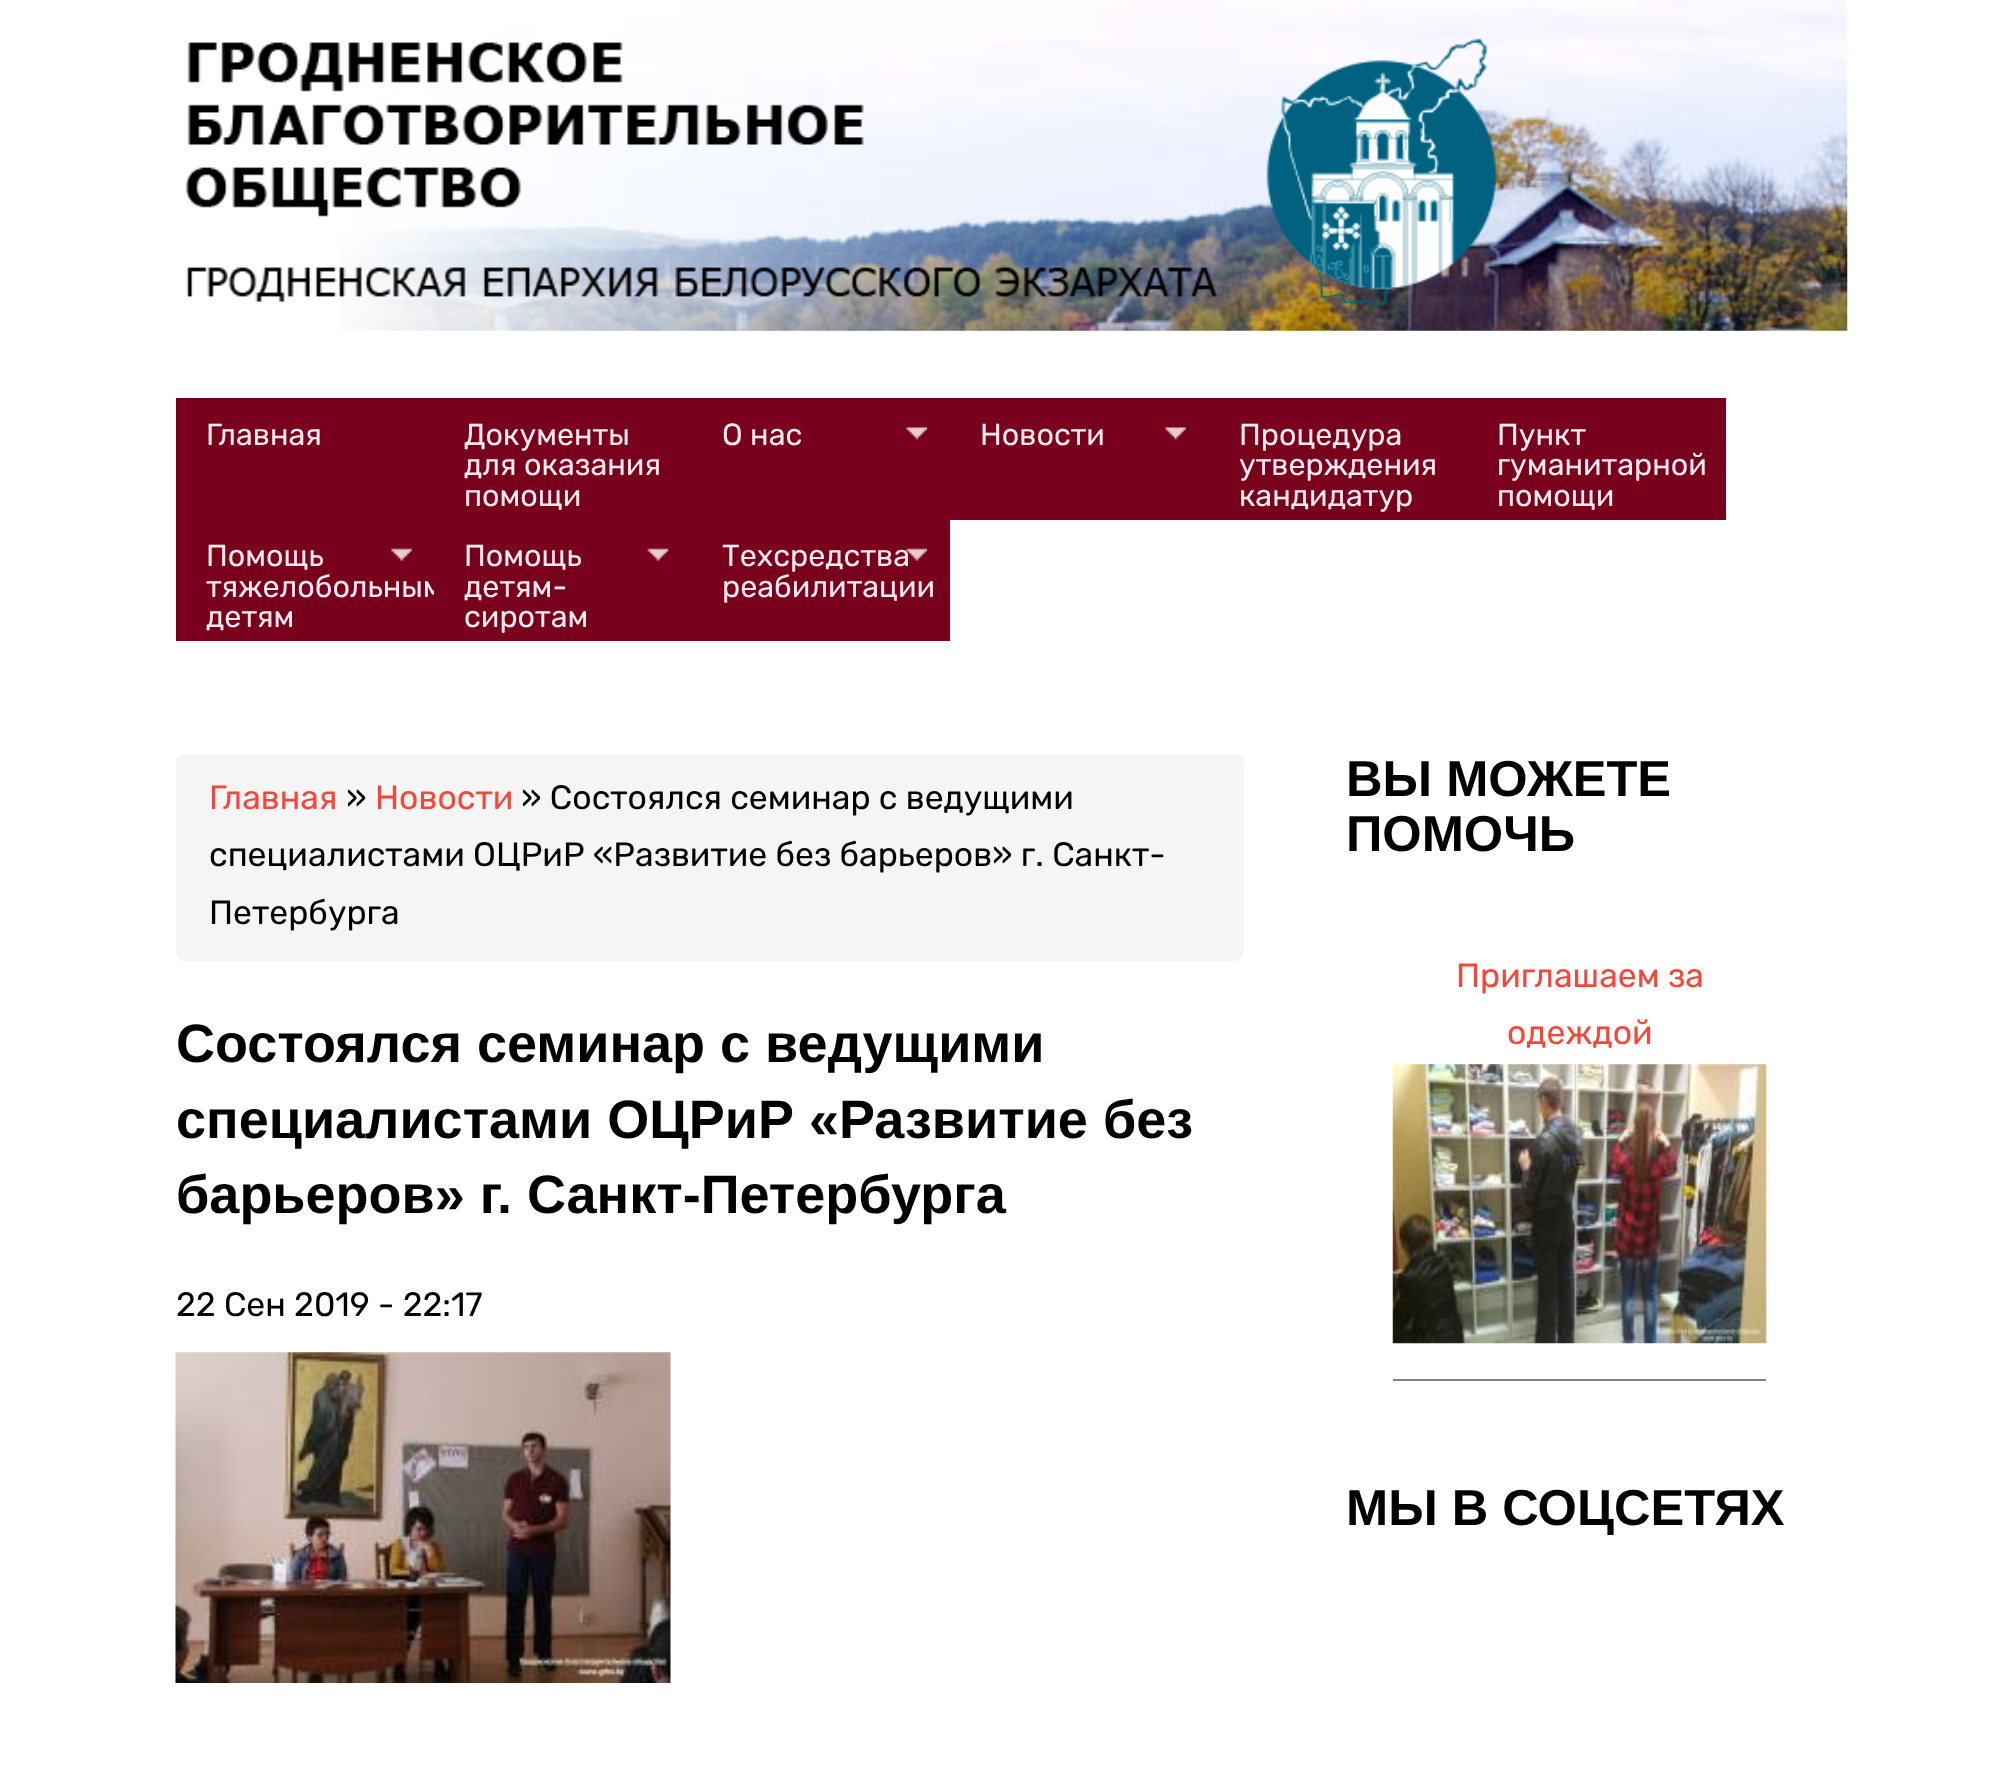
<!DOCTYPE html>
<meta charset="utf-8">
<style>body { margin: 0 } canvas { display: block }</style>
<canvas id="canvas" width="1989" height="1788"></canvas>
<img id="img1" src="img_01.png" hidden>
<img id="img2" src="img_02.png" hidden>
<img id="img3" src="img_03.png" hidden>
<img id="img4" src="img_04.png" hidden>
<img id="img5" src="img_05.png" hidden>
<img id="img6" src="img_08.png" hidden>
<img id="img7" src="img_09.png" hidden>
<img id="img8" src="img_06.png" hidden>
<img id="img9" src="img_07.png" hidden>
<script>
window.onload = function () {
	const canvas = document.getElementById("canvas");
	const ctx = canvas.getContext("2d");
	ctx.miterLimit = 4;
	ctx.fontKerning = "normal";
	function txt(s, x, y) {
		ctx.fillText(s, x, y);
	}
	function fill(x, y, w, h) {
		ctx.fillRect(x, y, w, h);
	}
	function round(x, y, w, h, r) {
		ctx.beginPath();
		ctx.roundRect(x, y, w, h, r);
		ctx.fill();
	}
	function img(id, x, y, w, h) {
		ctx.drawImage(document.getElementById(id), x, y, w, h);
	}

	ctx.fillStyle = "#FFFFFF";
	fill(0, 0, 1989, 1788);
	img("img1", 339, 0, 1509, 331);
	img("img2", 185, 38, 1312, 268);
	ctx.fillStyle = "#79001C";
	fill(176, 398, 1550, 122);
	img("img3", 906, 427, 21, 13);
	img("img4", 1165, 427, 21, 13);
	fill(176, 520, 258, 121);
	img("img5", 391, 548, 21, 13);
	ctx.fillStyle = "#F5F5F5";
	round(176, 754, 1068, 207, 9);
	img("img6", 175, 1352, 496, 331);
	ctx.fillStyle = "#808080";
	fill(1393, 1379, 373, 2);
	img("img7", 1392, 1064, 375, 280);
	ctx.font = "300 30.5px Rubik";
	ctx.fillStyle = "#FFEBEE";
	txt("Главная", 206, 445);
	txt("Документы", 464, 445);
	txt("для оказания", 464, 475);
	txt("помощи", 464, 506);
	txt("О нас", 722, 445);
	txt("Новости", 980, 445);
	txt("Процедура", 1239, 445);
	txt("утверждения", 1239, 475);
	txt("кандидатур", 1239, 506);
	txt("Пункт", 1497, 445);
	txt("гуманитарной", 1497, 475);
	txt("помощи", 1497, 506);
	txt("Помощь", 206, 566);
	txt("тяжелобольным", 206, 597);
	txt("детям", 206, 627);
	ctx.fillStyle = "#79001C";
	fill(434, 520, 516, 121);
	ctx.fillStyle = "#FFEBEE";
	txt("Помощь", 464, 566);
	img("img8", 647, 548, 22, 13);
	txt("детям-", 464, 597);
	txt("сиротам", 464, 627);
	txt("Техсредства", 722, 566);
	img("img9", 906, 548, 21, 13);
	txt("реабилитации", 722, 597);
	ctx.font = "300 33.75px Rubik";
	ctx.fillStyle = "#F4473A";
	txt("Главная", 209, 809);
	ctx.fillStyle = "#000000";
	txt("»", 346, 809);
	ctx.fillStyle = "#F4473A";
	txt("Новости", 375, 809);
	ctx.fillStyle = "#000000";
	txt("» Состоялся семинар с ведущими", 521, 809);
	txt("специалистами ОЦРиР «Развитие без барьеров» г. Санкт-", 209, 866);
	txt("Петербурга", 209, 924);
	ctx.font = "bold 54px Liberation Sans";
	txt("Состоялся семинар с ведущими", 176, 1062);
	txt("специалистами ОЦРиР «Развитие без", 176, 1138);
	txt("барьеров» г. Санкт-Петербурга", 176, 1213);
	ctx.font = "300 33.75px Rubik";
	txt("22 Сен 2019 - 22:17", 176, 1316);
	ctx.font = "bold 50.6px Liberation Sans";
	txt("ВЫ МОЖЕТЕ", 1346, 796);
	txt("ПОМОЧЬ", 1346, 851);
	ctx.font = "300 33.75px Rubik";
	ctx.fillStyle = "#F4473A";
	txt("Приглашаем за", 1456, 987);
	txt("одеждой", 1507, 1044);
	ctx.font = "bold 50.6px Liberation Sans";
	ctx.fillStyle = "#000000";
	txt("МЫ В СОЦСЕТЯХ", 1346, 1525);
};
</script>
